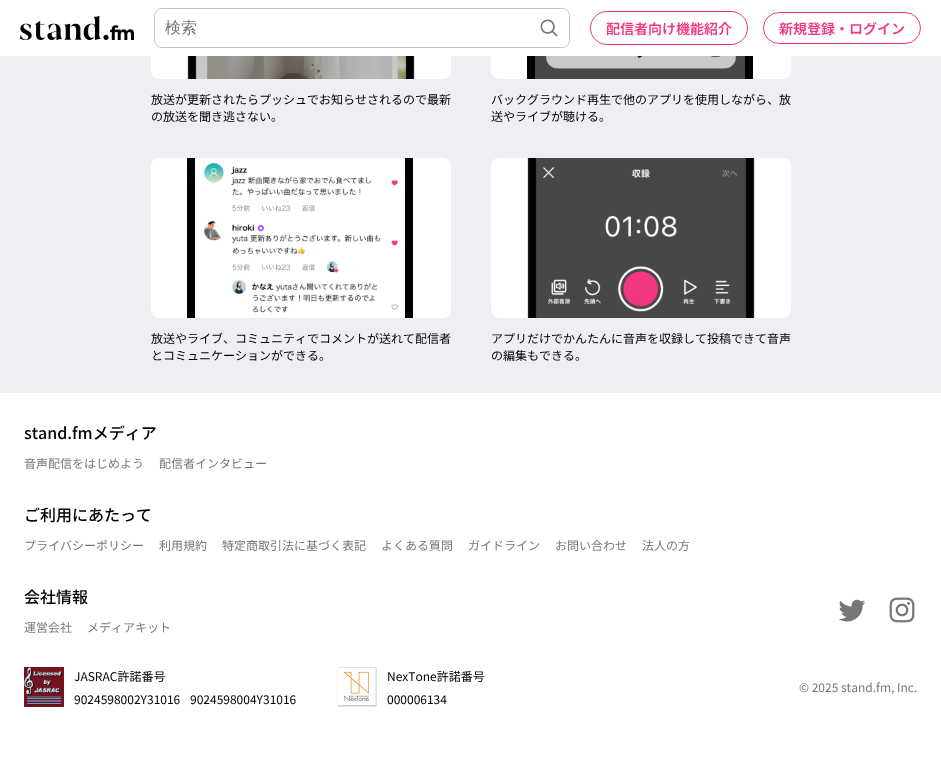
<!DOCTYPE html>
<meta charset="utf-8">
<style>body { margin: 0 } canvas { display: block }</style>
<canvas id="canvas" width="941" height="767"></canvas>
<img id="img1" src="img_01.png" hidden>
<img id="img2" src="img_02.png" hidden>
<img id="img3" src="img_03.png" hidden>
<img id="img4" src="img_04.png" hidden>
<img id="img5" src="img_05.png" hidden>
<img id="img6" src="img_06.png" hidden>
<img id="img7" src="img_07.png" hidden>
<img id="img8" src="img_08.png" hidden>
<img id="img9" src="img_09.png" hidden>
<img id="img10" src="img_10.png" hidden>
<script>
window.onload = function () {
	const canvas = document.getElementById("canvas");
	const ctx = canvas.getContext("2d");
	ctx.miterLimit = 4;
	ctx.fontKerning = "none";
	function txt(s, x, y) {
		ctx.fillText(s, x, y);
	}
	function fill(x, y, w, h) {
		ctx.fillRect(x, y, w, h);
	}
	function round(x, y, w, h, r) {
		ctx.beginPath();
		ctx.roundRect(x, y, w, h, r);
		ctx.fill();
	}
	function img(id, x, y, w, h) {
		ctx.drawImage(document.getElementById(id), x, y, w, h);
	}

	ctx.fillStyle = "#FFFFFF";
	fill(0, 0, 941, 767);
	img("img1", 20, 16, 114, 24);
	ctx.beginPath();
	ctx.roundRect(154.5, 8.5, 415, 39, 7.5);
	ctx.strokeStyle = "#C3C3C3";
	ctx.stroke();
	round(155, 9, 414, 38, 8);
	img("img2", 540, 19, 18, 18);
	ctx.beginPath();
	ctx.roundRect(590.5, 11.5, 157, 33, 16.5);
	ctx.strokeStyle = "#F33682";
	ctx.stroke();
	ctx.beginPath();
	ctx.roundRect(763.5, 12.5, 157, 31, 15.5);
	ctx.stroke();
	ctx.fillStyle = "#EDEFF3";
	fill(0, 56, 941, 337);
	img("img3", 151, 56, 300, 23);
	img("img4", 491, 56, 300, 23);
	img("img5", 151, 158, 300, 160);
	img("img6", 491, 158, 300, 160);
	img("img7", 838, 599, 28, 23);
	img("img8", 889, 597, 26, 26);
	img("img9", 24, 667, 40, 40);
	img("img10", 337, 667, 40, 40);
	ctx.font = "500 16px WenQuanYi Zen Hei";
	ctx.fillStyle = "#777777";
	txt("検索", 165, 33);
	ctx.font = "600 14px Noto Sans JP";
	ctx.fillStyle = "#F33682";
	txt("配信者向け機能紹介", 606, 34);
	txt("新規登録・ログイン", 779, 34);
	ctx.font = "12px Noto Sans JP";
	ctx.fillStyle = "#000000";
	txt("放送が更新されたらプッシュでお知らせされるので最新", 151, 104);
	txt("の放送を聞き逃さない。", 151, 121);
	txt("バックグラウンド再生で他のアプリを使用しながら、放", 491, 104);
	txt("送やライブが聴ける。", 491, 121);
	txt("放送やライブ、コミュニティでコメントが送れて配信者", 151, 343);
	txt("とコミュニケーションができる。", 151, 360);
	txt("アプリだけでかんたんに音声を収録して投稿できて音声", 491, 343);
	txt("の編集もできる。", 491, 360);
	ctx.font = "500 16px Noto Sans JP";
	txt("stand.fmメディア", 24, 439);
	ctx.font = "12px Noto Sans JP";
	ctx.fillStyle = "#777777";
	txt("音声配信をはじめよう", 24, 468);
	txt("配信者インタビュー", 159, 468);
	ctx.font = "500 16px Noto Sans JP";
	ctx.fillStyle = "#000000";
	txt("ご利用にあたって", 24, 521);
	ctx.font = "12px Noto Sans JP";
	ctx.fillStyle = "#777777";
	txt("プライバシーポリシー", 24, 550);
	txt("利用規約", 159, 550);
	txt("特定商取引法に基づく表記", 222, 550);
	txt("よくある質問", 381, 550);
	txt("ガイドライン", 468, 550);
	txt("お問い合わせ", 555, 550);
	txt("法人の方", 642, 550);
	ctx.font = "500 16px Noto Sans JP";
	ctx.fillStyle = "#000000";
	txt("会社情報", 24, 603);
	ctx.font = "12px Noto Sans JP";
	ctx.fillStyle = "#777777";
	txt("運営会社", 24, 632);
	txt("メディアキット", 87, 632);
	ctx.fillStyle = "#000000";
	txt("JASRAC許諾番号", 74, 681);
	txt("9024598002Y31016", 74, 704);
	txt("9024598004Y31016", 190, 704);
	txt("NexTone許諾番号", 387, 681);
	txt("000006134", 387, 704);
	ctx.fillStyle = "#777777";
	txt("© 2025 stand.fm, Inc.", 799, 692);
};
</script>
